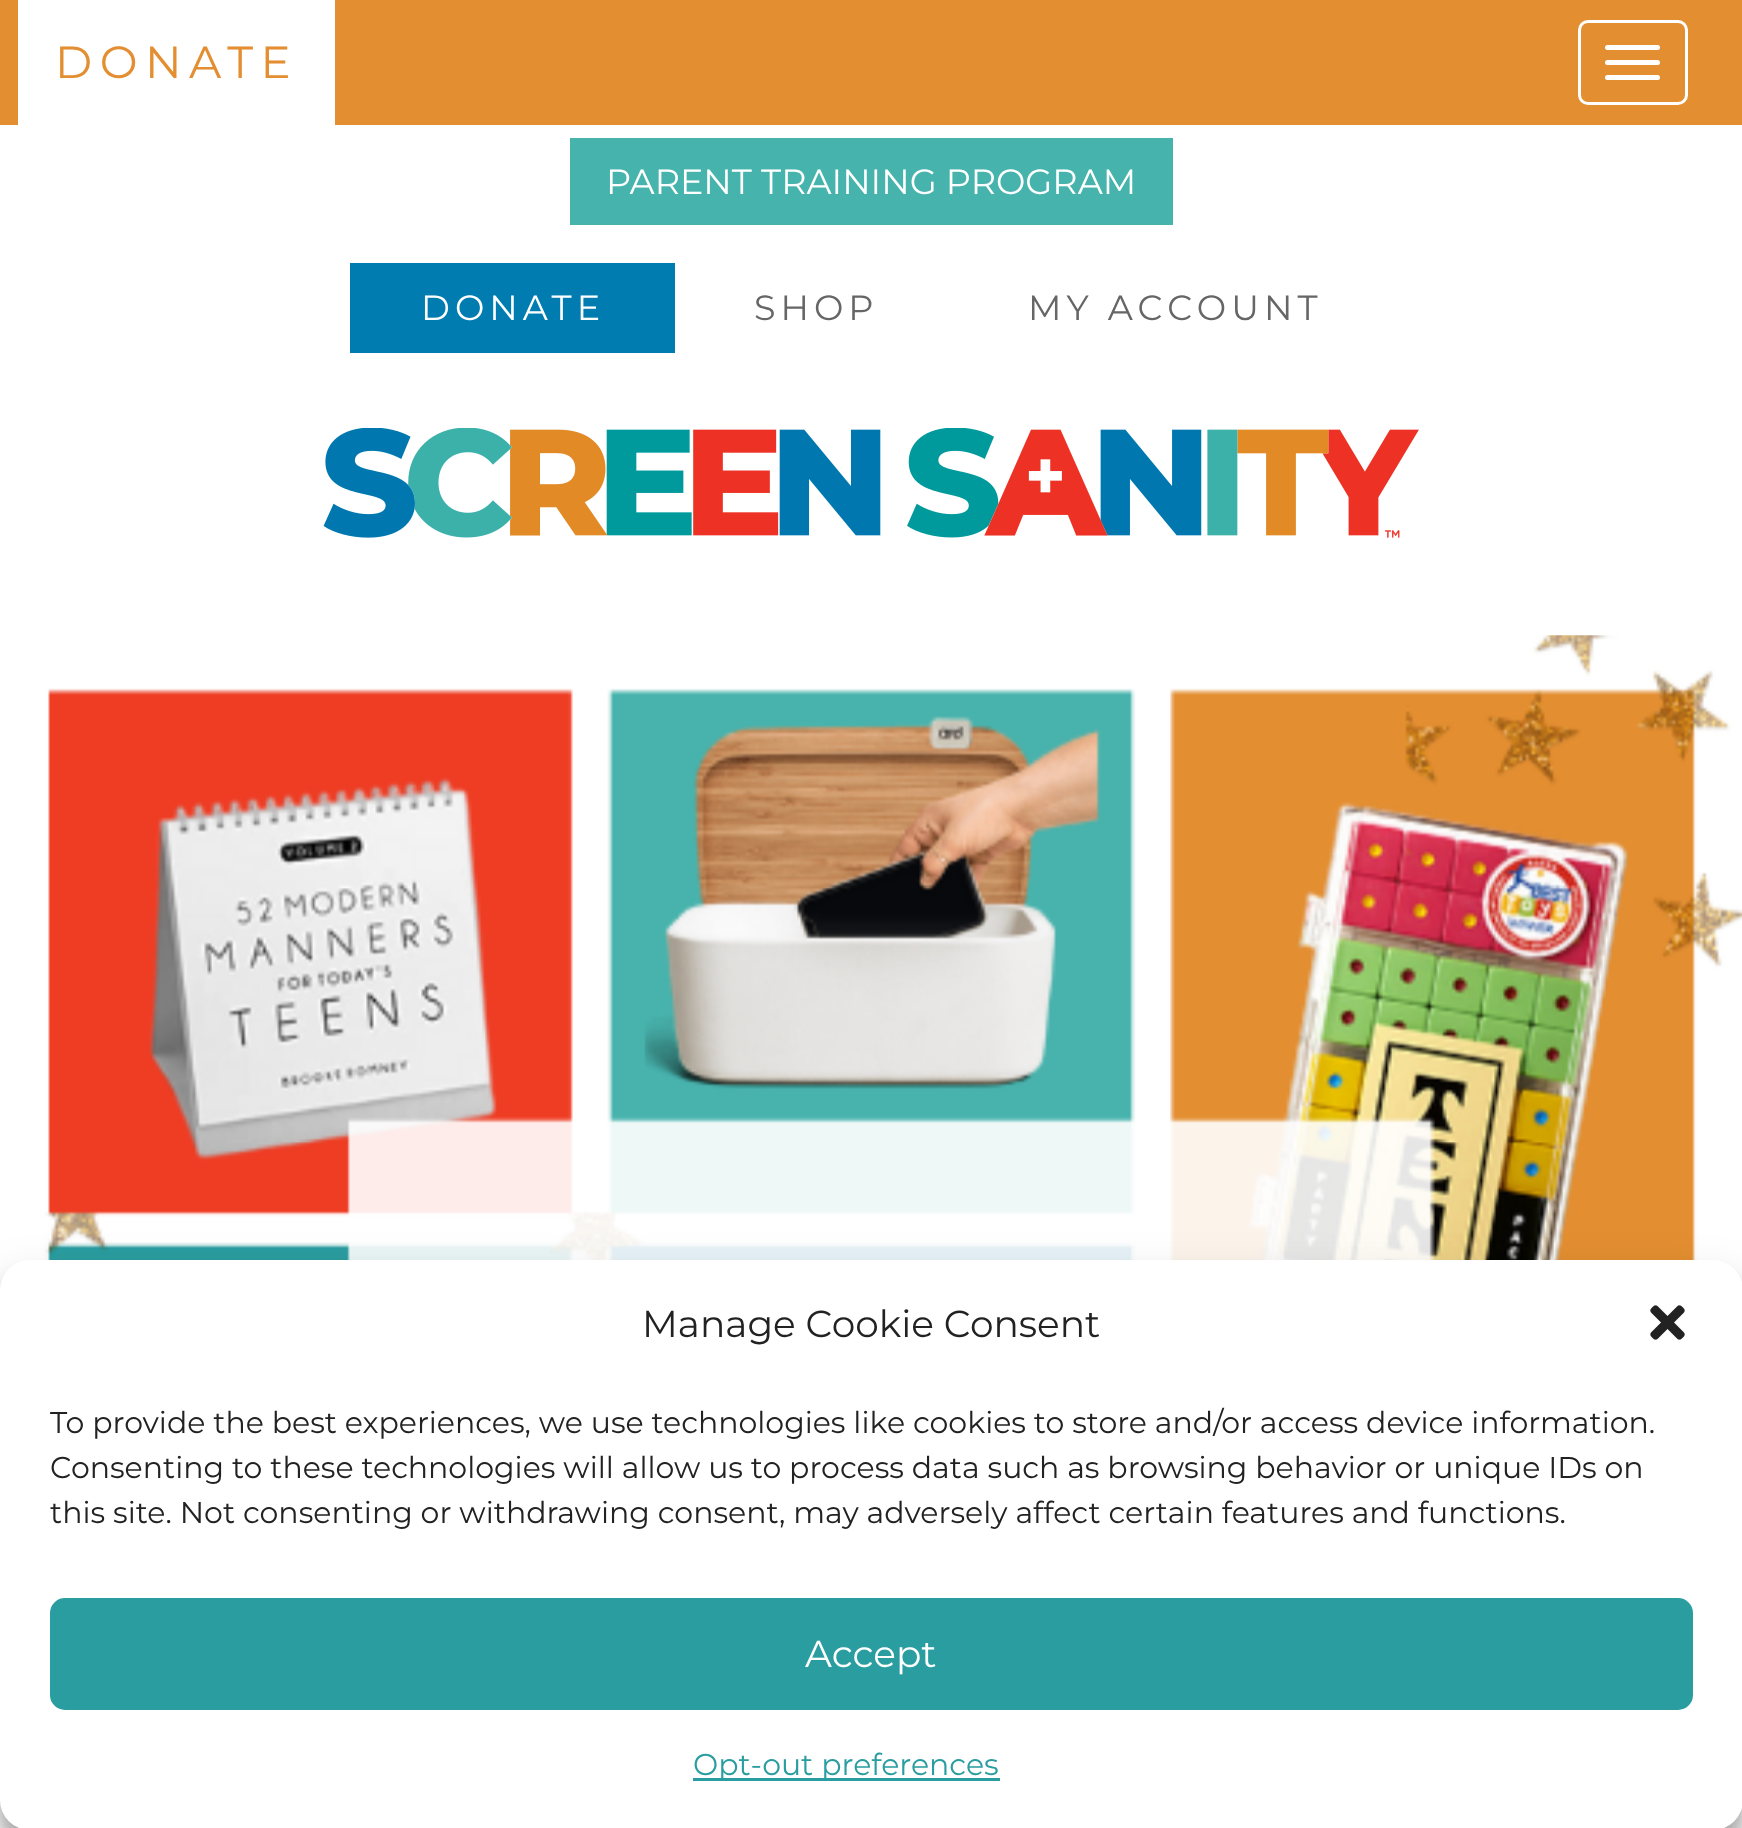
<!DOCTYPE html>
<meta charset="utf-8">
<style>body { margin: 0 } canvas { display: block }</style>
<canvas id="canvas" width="1742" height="1828"></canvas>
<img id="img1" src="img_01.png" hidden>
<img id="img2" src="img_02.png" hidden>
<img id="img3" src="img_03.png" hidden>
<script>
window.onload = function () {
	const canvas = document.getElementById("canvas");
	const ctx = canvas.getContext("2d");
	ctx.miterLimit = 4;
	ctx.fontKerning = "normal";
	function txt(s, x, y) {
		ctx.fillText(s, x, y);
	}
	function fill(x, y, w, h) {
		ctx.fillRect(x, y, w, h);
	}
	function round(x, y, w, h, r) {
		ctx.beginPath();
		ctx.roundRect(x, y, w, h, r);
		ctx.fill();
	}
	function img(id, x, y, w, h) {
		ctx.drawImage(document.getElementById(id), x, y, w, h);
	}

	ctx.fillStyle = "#FFFFFF";
	fill(0, 0, 1742, 1828);
	ctx.fillStyle = "#E38E31";
	fill(0, 0, 1742, 125);
	ctx.fillStyle = "#FFFFFF";
	fill(18, 0, 317, 125);
	ctx.beginPath();
	ctx.roundRect(1579.5, 21.5, 107, 82, 8.5);
	ctx.strokeStyle = "#FFFFFF";
	ctx.lineWidth = 3;
	ctx.stroke();
	round(1605, 45, 55, 5, 2.5);
	round(1605, 60, 55, 5, 2.5);
	round(1605, 75, 55, 5, 2.5);
	ctx.fillStyle = "#46B3AD";
	fill(570, 138, 603, 87);
	ctx.fillStyle = "#007CB0";
	fill(350, 263, 325, 90);
	img("img1", 323, 428, 1096, 110);
	img("img2", 0, 635, 1742, 1193);
	ctx.fillStyle = "rgba(0, 0, 0, 0.23)";
	ctx.filter = "blur(7.5px)";
	ctx.beginPath();
	ctx.roundRect(0, 1275, 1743, 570, 30);
	ctx.fill();
	ctx.filter = "none";
	ctx.fillStyle = "rgba(0, 0, 0, 0.19)";
	ctx.filter = "blur(25px)";
	ctx.beginPath();
	ctx.roundRect(0, 1285, 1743, 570, 30);
	ctx.fill();
	ctx.filter = "none";
	ctx.fillStyle = "#FFFFFF";
	round(0, 1260, 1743, 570, 30);
	img("img3", 1650, 1305, 35, 35);
	ctx.fillStyle = "#2A9DA0";
	ctx.beginPath();
	ctx.roundRect(51.5, 1599.5, 1640, 109, 13.5);
	ctx.fill();
	ctx.strokeStyle = "#2A9DA0";
	ctx.stroke();
	fill(693, 1778, 307, 3);
	ctx.letterSpacing = "7.5px";
	ctx.font = "45px Montserrat";
	ctx.fillStyle = "#E38E31";
	txt("DONATE", 55, 78);
	ctx.letterSpacing = "0px";
	ctx.font = "35px Montserrat";
	ctx.fillStyle = "#FFFFFF";
	txt("PARENT TRAINING PROGRAM", 606, 194);
	ctx.letterSpacing = "5px";
	txt("DONATE", 421, 320);
	ctx.fillStyle = "#666666";
	txt("SHOP", 754, 320);
	txt("MY ACCOUNT", 1028, 320);
	ctx.letterSpacing = "0px";
	ctx.font = "37.5px Montserrat";
	ctx.fillStyle = "#222222";
	txt("Manage Cookie Consent", 642, 1337);
	ctx.font = "30px Montserrat";
	txt("To provide the best experiences, we use technologies like cookies to store and/or access device information.", 50, 1433);
	txt("Consenting to these technologies will allow us to process data such as browsing behavior or unique IDs on", 50, 1478);
	txt("this site. Not consenting or withdrawing consent, may adversely affect certain features and functions.", 50, 1523);
	ctx.font = "37.5px Montserrat";
	ctx.fillStyle = "#FFFFFF";
	txt("Accept", 805, 1667);
	ctx.font = "30px Montserrat";
	ctx.fillStyle = "#2A9DA0";
	txt("Opt-out preferences", 693, 1775);
};
</script>
